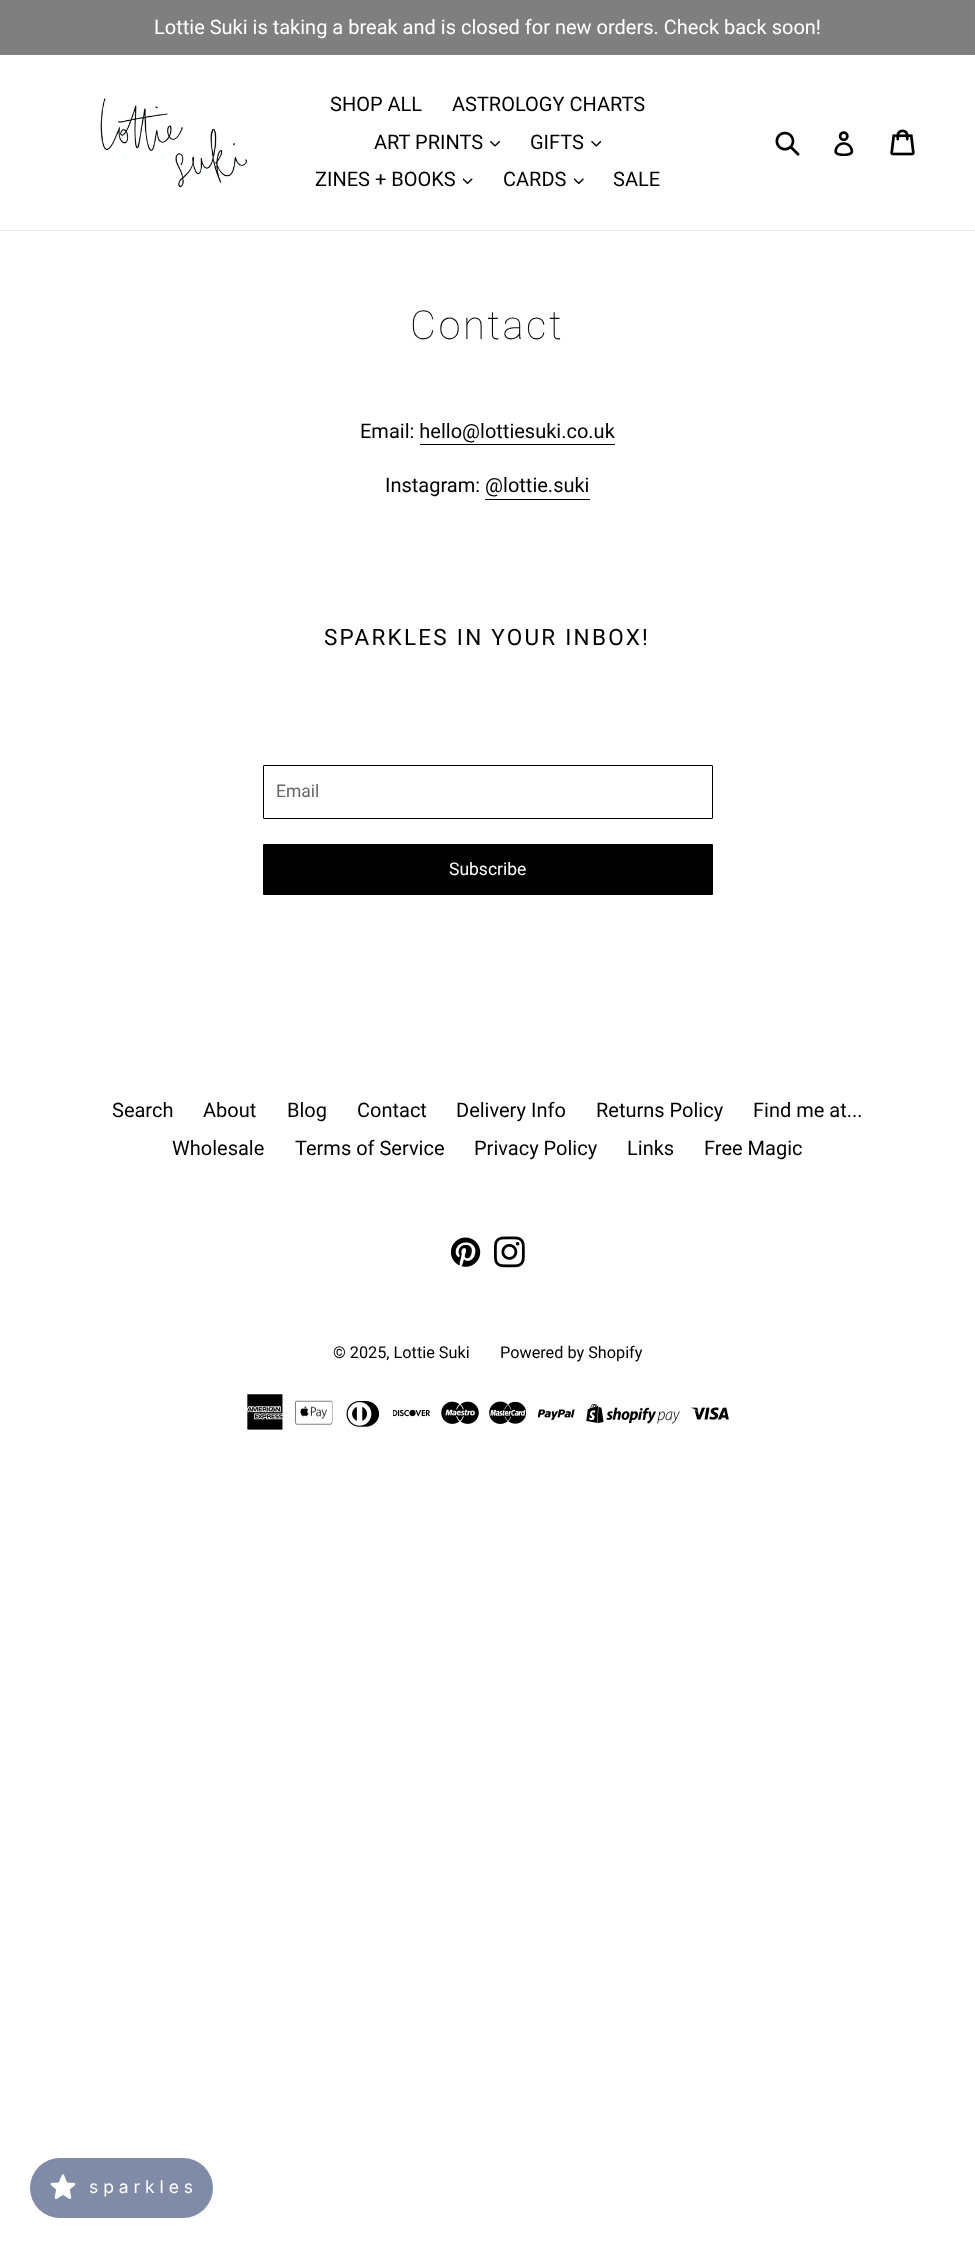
<!DOCTYPE html>
<meta charset="utf-8">
<style>body { margin: 0 } canvas { display: block }</style>
<canvas id="canvas" width="975" height="2247"></canvas>
<img id="img1" src="img_01.png" hidden>
<img id="img2" src="img_02.png" hidden>
<img id="img3" src="img_03.png" hidden>
<img id="img4" src="img_04.png" hidden>
<img id="img5" src="img_05.png" hidden>
<img id="img6" src="img_06.png" hidden>
<img id="img7" src="img_07.png" hidden>
<img id="img8" src="img_08.png" hidden>
<img id="img9" src="img_09.png" hidden>
<img id="img10" src="img_10.png" hidden>
<img id="img11" src="img_11.png" hidden>
<img id="img12" src="img_12.png" hidden>
<img id="img13" src="img_13.png" hidden>
<img id="img14" src="img_14.png" hidden>
<img id="img15" src="img_15.png" hidden>
<img id="img16" src="img_16.png" hidden>
<img id="img17" src="img_17.png" hidden>
<img id="img18" src="img_18.png" hidden>
<img id="img19" src="img_19.png" hidden>
<img id="img20" src="img_20.png" hidden>
<script>
window.onload = function () {
	const canvas = document.getElementById("canvas");
	const ctx = canvas.getContext("2d");
	ctx.miterLimit = 4;
	ctx.fontKerning = "normal";
	function txt(s, x, y) {
		ctx.fillText(s, x, y);
	}
	function fill(x, y, w, h) {
		ctx.fillRect(x, y, w, h);
	}
	function round(x, y, w, h, r) {
		ctx.beginPath();
		ctx.roundRect(x, y, w, h, r);
		ctx.fill();
	}
	function img(id, x, y, w, h) {
		ctx.drawImage(document.getElementById(id), x, y, w, h);
	}

	ctx.fillStyle = "#FFFFFF";
	fill(0, 0, 975, 2247);
	ctx.fillStyle = "#7F7F7F";
	fill(0, 0, 975, 55);
	ctx.fillStyle = "#E8E9EB";
	fill(0, 230, 975, 1);
	img("img1", 99, 97, 149, 91);
	img("img2", 490, 140, 10, 7);
	img("img3", 591, 140, 10, 7);
	img("img4", 463, 178, 10, 7);
	img("img5", 574, 178, 10, 7);
	img("img6", 775, 131, 25, 25);
	img("img7", 834, 131, 20, 25);
	img("img8", 890, 129, 25, 27);
	ctx.fillStyle = "#000000";
	fill(420, 444, 195, 1);
	fill(485, 499, 105, 1);
	ctx.beginPath();
	ctx.roundRect(263.5, 765.5, 449, 53, 0.5);
	ctx.strokeStyle = "#000000";
	ctx.stroke();
	round(263, 844, 450, 51, 1);
	img("img9", 450, 1237, 31, 30);
	img("img10", 494, 1236, 31, 32);
	img("img11", 247, 1394, 36, 36);
	img("img12", 295, 1400, 38, 25);
	img("img13", 346, 1401, 34, 26);
	img("img14", 393, 1409, 37, 8);
	img("img15", 441, 1401, 38, 23);
	img("img16", 489, 1401, 37, 23);
	img("img17", 538, 1409, 37, 11);
	img("img18", 586, 1404, 94, 20);
	img("img19", 691, 1407, 38, 13);
	ctx.fillStyle = "#808BA7";
	round(30, 2158, 183, 60, 30);
	img("img20", 50, 2174, 26, 25);
	ctx.font = "20px Roboto";
	ctx.fillStyle = "#FFFFFF";
	txt("Lottie Suki is taking a break and is closed for new orders. Check back soon!", 154, 34);
	ctx.fillStyle = "#000000";
	txt("SHOP ALL", 330, 111);
	txt("ASTROLOGY CHARTS", 452, 111);
	txt("ART PRINTS", 374, 149);
	txt("GIFTS", 530, 149);
	txt("ZINES + BOOKS", 315, 186);
	txt("CARDS", 503, 186);
	txt("SALE", 613, 186);
	ctx.letterSpacing = "2.5px";
	ctx.font = "100 40px Roboto";
	txt("Contact", 410, 339);
	ctx.letterSpacing = "0px";
	ctx.font = "20px Roboto";
	txt("Email: hello@lottiesuki.co.uk", 360, 438);
	txt("Instagram: @lottie.suki", 385, 492);
	ctx.letterSpacing = "2.25px";
	ctx.font = "22.5px Roboto";
	txt("SPARKLES IN YOUR INBOX!", 324, 645);
	ctx.letterSpacing = "0px";
	ctx.font = "17.5px Roboto";
	ctx.fillStyle = "#666666";
	txt("Email", 276, 797);
	ctx.fillStyle = "#FFFFFF";
	txt("Subscribe", 449, 875);
	ctx.font = "20px Roboto";
	ctx.fillStyle = "#000000";
	txt("Search", 112, 1117);
	txt("About", 203, 1117);
	txt("Blog", 287, 1117);
	txt("Contact", 357, 1117);
	txt("Delivery Info", 456, 1117);
	txt("Returns Policy", 596, 1117);
	txt("Find me at...", 753, 1117);
	txt("Wholesale", 172, 1155);
	txt("Terms of Service", 295, 1155);
	txt("Privacy Policy", 474, 1155);
	txt("Links", 627, 1155);
	txt("Free Magic", 704, 1155);
	ctx.font = "16.25px Roboto";
	txt("© 2025, Lottie Suki", 333, 1358);
	txt("Powered by Shopify", 500, 1358);
	ctx.font = "17.5px Inter";
	ctx.fillStyle = "#FFFFFF";
	txt("s p a r k l e s", 89, 2193);
};
</script>
